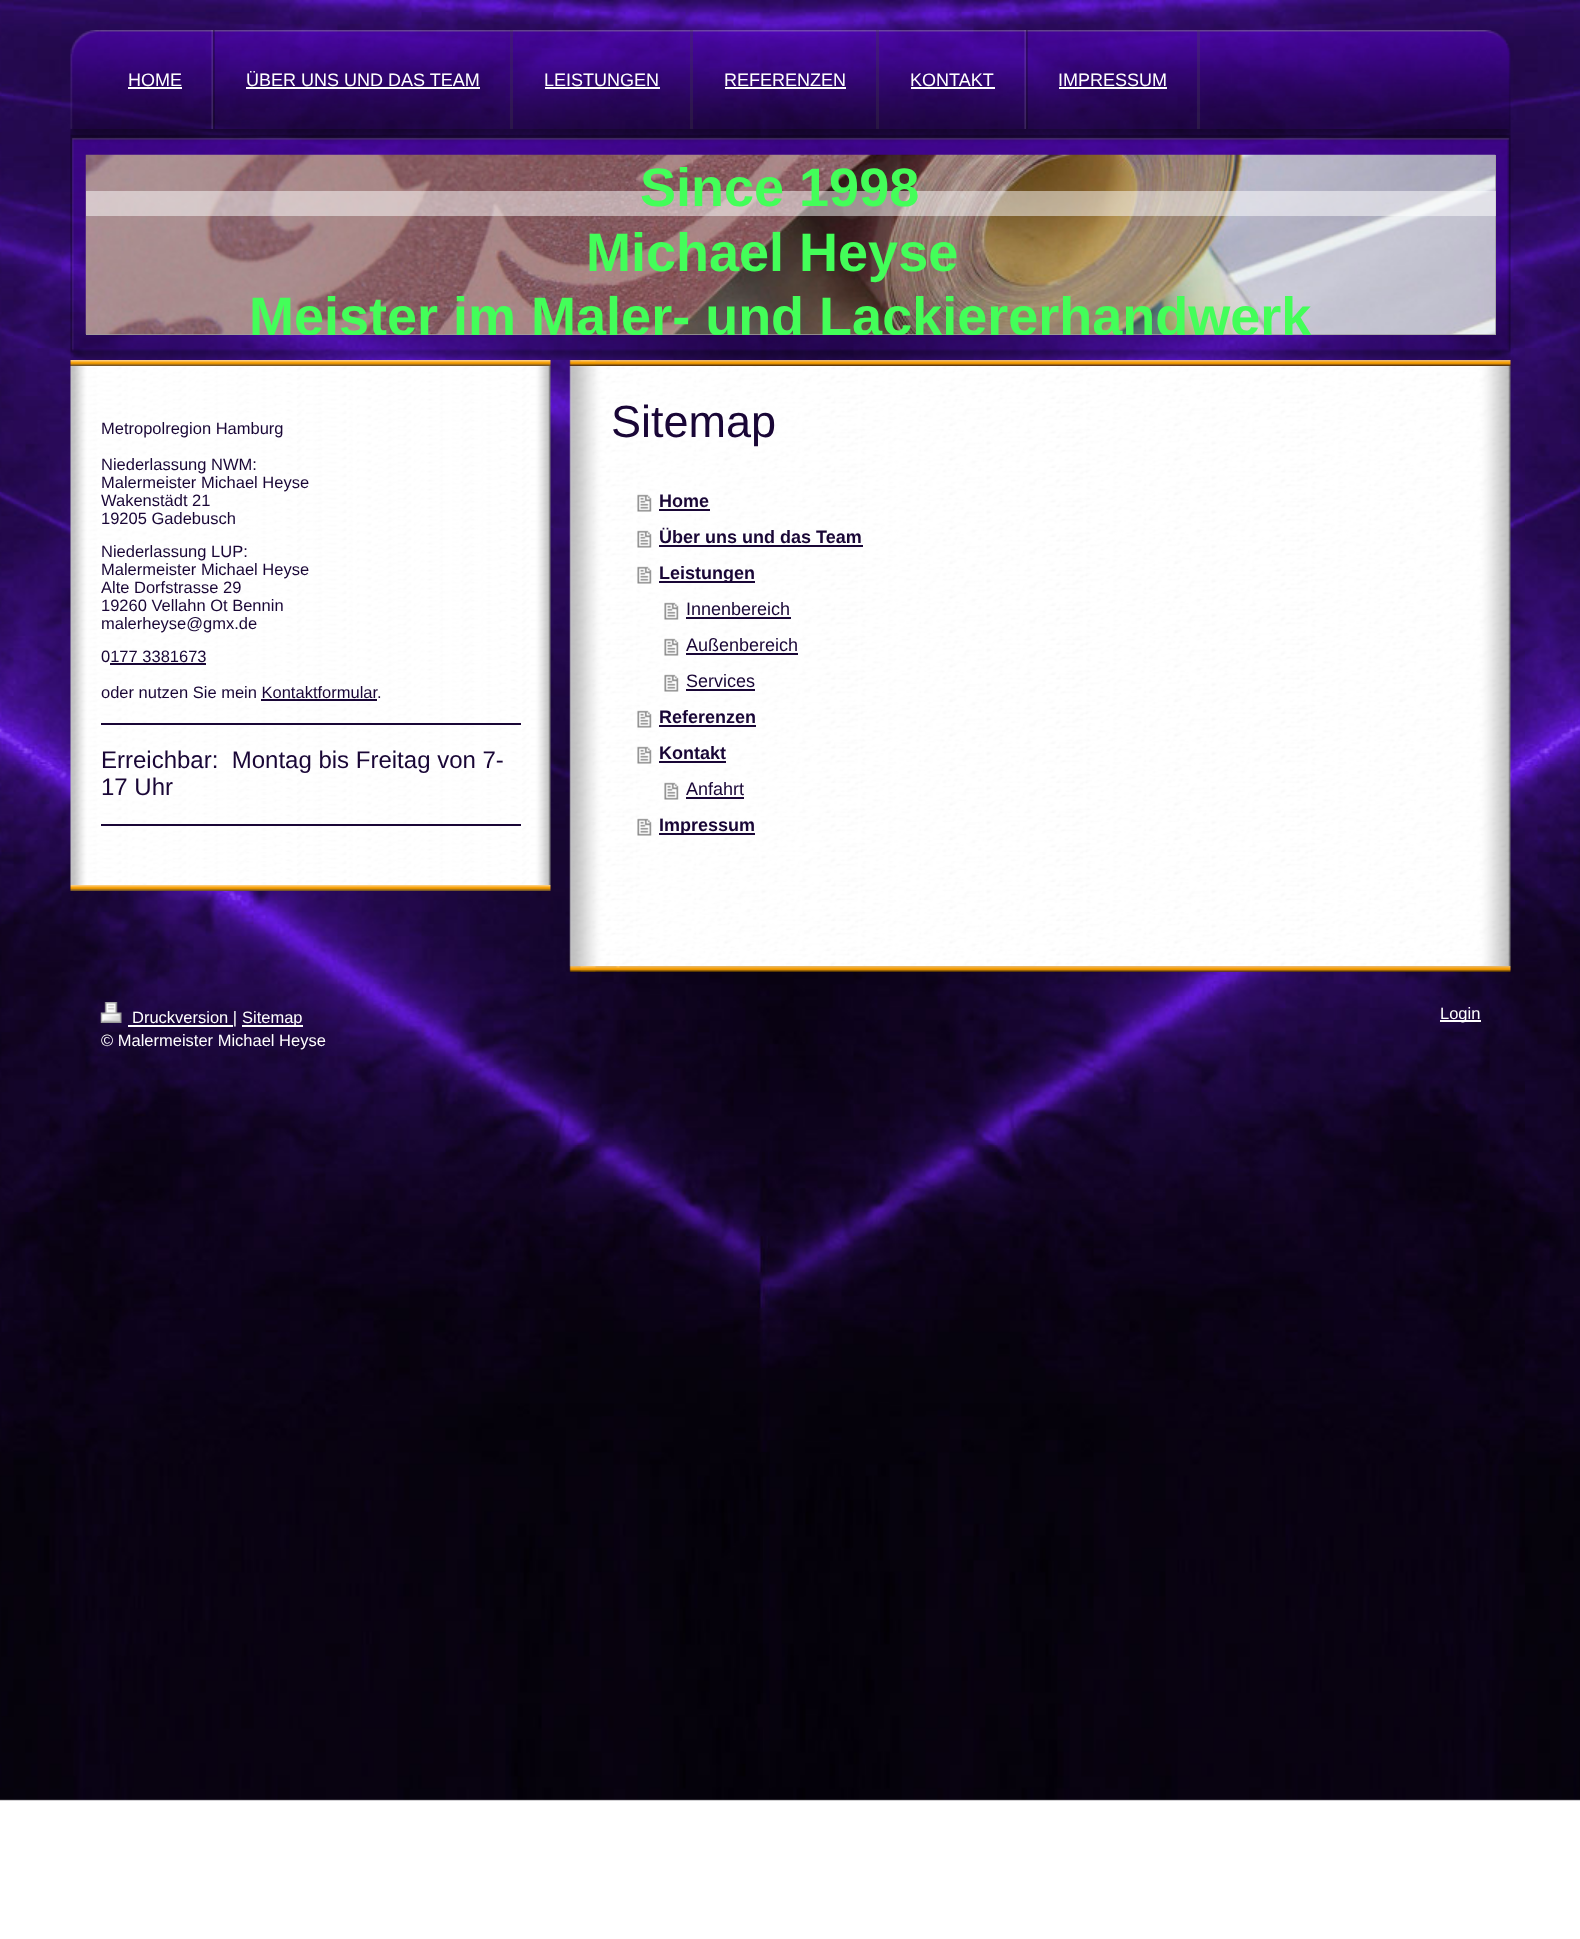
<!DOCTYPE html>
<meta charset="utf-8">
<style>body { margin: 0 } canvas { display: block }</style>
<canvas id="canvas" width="1580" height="1939"></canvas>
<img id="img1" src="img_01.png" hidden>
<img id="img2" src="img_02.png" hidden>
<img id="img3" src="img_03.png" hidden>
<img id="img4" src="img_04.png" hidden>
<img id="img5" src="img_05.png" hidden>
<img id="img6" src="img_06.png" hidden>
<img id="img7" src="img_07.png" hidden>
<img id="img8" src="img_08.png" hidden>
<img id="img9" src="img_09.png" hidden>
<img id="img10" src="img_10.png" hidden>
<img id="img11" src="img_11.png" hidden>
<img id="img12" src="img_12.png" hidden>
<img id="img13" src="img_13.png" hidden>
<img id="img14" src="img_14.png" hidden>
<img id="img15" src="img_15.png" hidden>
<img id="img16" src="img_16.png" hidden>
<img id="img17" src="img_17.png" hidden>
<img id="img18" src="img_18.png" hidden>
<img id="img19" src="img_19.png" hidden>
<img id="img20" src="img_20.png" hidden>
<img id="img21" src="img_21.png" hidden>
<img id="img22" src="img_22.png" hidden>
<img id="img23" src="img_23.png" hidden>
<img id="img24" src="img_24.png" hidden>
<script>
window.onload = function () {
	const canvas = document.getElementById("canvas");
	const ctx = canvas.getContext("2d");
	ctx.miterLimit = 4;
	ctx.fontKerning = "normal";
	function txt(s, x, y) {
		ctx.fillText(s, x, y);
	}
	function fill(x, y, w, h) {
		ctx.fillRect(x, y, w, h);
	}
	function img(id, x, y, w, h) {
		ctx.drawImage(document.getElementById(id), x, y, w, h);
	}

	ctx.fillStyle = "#FFFFFF";
	fill(0, 0, 1580, 1939);
	img("img1", 0, 0, 1580, 1801);
	img("img2", 70, 30, 1441, 99);
	img("img3", 211, 30, 4, 99);
	fill(128, 87, 54, 2);
	ctx.fillStyle = "rgba(65, 65, 65, 0.29)";
	fill(510, 30, 3, 99);
	ctx.fillStyle = "#FFFFFF";
	fill(246, 87, 234, 2);
	ctx.fillStyle = "rgba(65, 65, 65, 0.29)";
	fill(690, 30, 3, 99);
	ctx.fillStyle = "#FFFFFF";
	fill(545, 87, 115, 2);
	ctx.fillStyle = "rgba(65, 65, 65, 0.29)";
	fill(876, 30, 3, 99);
	ctx.fillStyle = "#FFFFFF";
	fill(725, 87, 121, 2);
	img("img4", 1024, 30, 4, 99);
	fill(911, 87, 84, 2);
	ctx.fillStyle = "rgba(76, 76, 76, 0.27)";
	fill(1197, 30, 3, 99);
	ctx.fillStyle = "#FFFFFF";
	fill(1059, 87, 108, 2);
	img("img5", 70, 129, 1441, 8);
	img("img6", 70, 136, 1441, 224);
	ctx.fillStyle = "#A0A0A0";
	fill(86, 155, 1410, 180);
	img("img7", 85, 154, 1411, 181);
	ctx.fillStyle = "rgba(255, 255, 255, 0.5)";
	fill(86, 191, 1410, 25);
	img("img8", 70, 360, 481, 6);
	img("img9", 70, 366, 481, 519);
	ctx.fillStyle = "#190636";
	fill(110, 663, 96, 2);
	fill(261, 699, 116, 2);
	fill(101, 723, 420, 2);
	fill(101, 824, 420, 2);
	img("img10", 70, 885, 481, 6);
	img("img11", 569, 360, 942, 6);
	img("img12", 569, 366, 942, 600);
	img("img13", 637, 494, 15, 18);
	fill(659, 509, 51, 2);
	img("img14", 637, 530, 15, 18);
	fill(659, 545, 204, 2);
	img("img15", 637, 566, 15, 18);
	fill(659, 581, 96, 2);
	img("img16", 664, 602, 15, 18);
	fill(686, 617, 105, 2);
	img("img17", 664, 638, 15, 18);
	fill(686, 653, 112, 2);
	img("img18", 664, 674, 15, 18);
	fill(686, 689, 69, 2);
	img("img19", 637, 710, 15, 18);
	fill(659, 725, 97, 2);
	img("img20", 637, 746, 15, 18);
	fill(659, 761, 67, 2);
	img("img21", 664, 782, 15, 18);
	fill(686, 797, 58, 2);
	img("img22", 637, 818, 15, 18);
	fill(659, 833, 96, 2);
	img("img23", 569, 966, 942, 6);
	img("img24", 100, 1002, 22, 21);
	ctx.fillStyle = "#FFFFFF";
	fill(128, 1025, 105, 2);
	fill(242, 1025, 61, 2);
	fill(1440, 1020, 41, 2);
	ctx.font = "18px Liberation Sans";
	txt("HOME", 128, 86);
	txt("ÜBER UNS UND DAS TEAM", 246, 86);
	txt("LEISTUNGEN", 544, 86);
	txt("REFERENZEN", 724, 86);
	txt("KONTAKT", 910, 86);
	txt("IMPRESSUM", 1058, 86);
	ctx.font = "bold 54px Liberation Sans";
	ctx.fillStyle = "#43FE59";
	txt("Since 1998", 640, 206);
	txt("Michael Heyse", 586, 271);
	ctx.save();
	ctx.beginPath();
	ctx.rect(86, 155, 1410, 180);
	ctx.clip();
	txt("Meister im Maler- und Lackiererhandwerk", 249, 335);
	ctx.restore();
	ctx.font = "16.5px Liberation Sans";
	ctx.fillStyle = "#190636";
	txt("Metropolregion Hamburg", 101, 434);
	txt("Niederlassung NWM:", 101, 470);
	txt("Malermeister Michael Heyse", 101, 488);
	txt("Wakenstädt 21", 101, 506);
	txt("19205 Gadebusch", 101, 524);
	txt("Niederlassung LUP:", 101, 557);
	txt("Malermeister Michael Heyse", 101, 575);
	txt("Alte Dorfstrasse 29", 101, 593);
	txt("19260 Vellahn Ot Bennin", 101, 611);
	txt("malerheyse@gmx.de", 101, 629);
	txt("0177 3381673", 101, 662);
	txt("oder nutzen Sie mein Kontaktformular", 101, 698);
	txt(".", 377, 698);
	ctx.font = "24px Liberation Sans";
	txt("Erreichbar:  Montag bis Freitag von 7-", 101, 768);
	txt("17 Uhr", 101, 795);
	ctx.font = "45px Liberation Sans";
	txt("Sitemap", 611, 437);
	ctx.font = "bold 18px Liberation Sans";
	txt("Home", 659, 507);
	txt("Über uns und das Team", 659, 543);
	txt("Leistungen", 659, 579);
	ctx.font = "18px Liberation Sans";
	txt("Innenbereich", 686, 615);
	txt("Außenbereich", 686, 651);
	txt("Services", 686, 687);
	ctx.font = "bold 18px Liberation Sans";
	txt("Referenzen", 659, 723);
	txt("Kontakt", 659, 759);
	ctx.font = "18px Liberation Sans";
	txt("Anfahrt", 686, 795);
	ctx.font = "bold 18px Liberation Sans";
	txt("Impressum", 659, 831);
	ctx.font = "16.5px Liberation Sans";
	ctx.fillStyle = "#FFFFFF";
	txt("Druckversion |", 132, 1023);
	txt("Sitemap", 242, 1023);
	ctx.save();
	ctx.beginPath();
	ctx.rect(101, 1002, 1380, 51);
	ctx.clip();
	txt("© Malermeister Michael Heyse", 101, 1046);
	ctx.restore();
	txt("Login", 1440, 1019);
};
</script>
